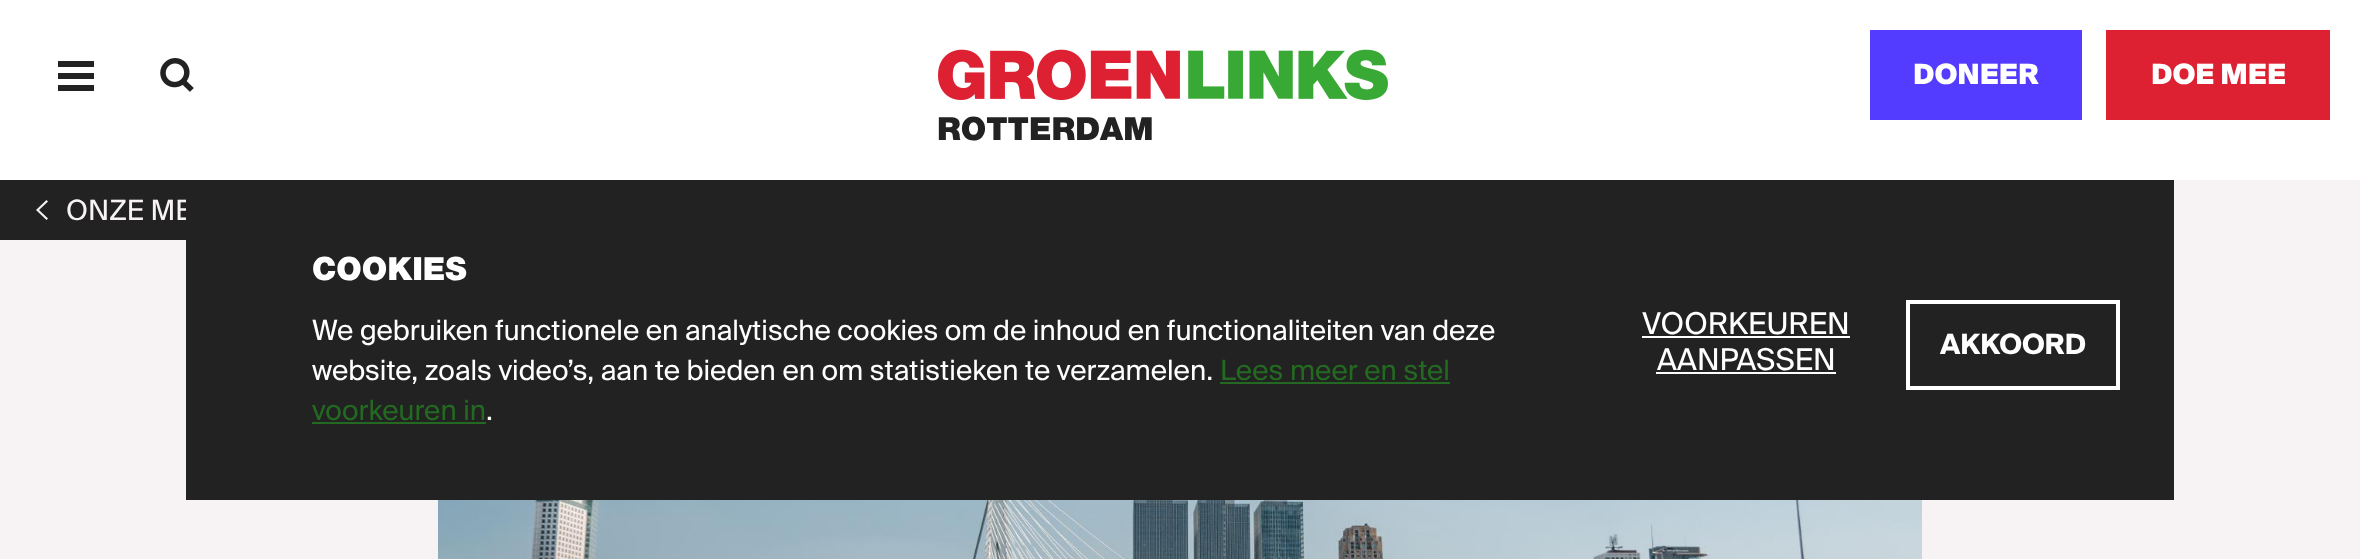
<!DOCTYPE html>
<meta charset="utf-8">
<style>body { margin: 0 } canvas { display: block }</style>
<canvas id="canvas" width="2360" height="559"></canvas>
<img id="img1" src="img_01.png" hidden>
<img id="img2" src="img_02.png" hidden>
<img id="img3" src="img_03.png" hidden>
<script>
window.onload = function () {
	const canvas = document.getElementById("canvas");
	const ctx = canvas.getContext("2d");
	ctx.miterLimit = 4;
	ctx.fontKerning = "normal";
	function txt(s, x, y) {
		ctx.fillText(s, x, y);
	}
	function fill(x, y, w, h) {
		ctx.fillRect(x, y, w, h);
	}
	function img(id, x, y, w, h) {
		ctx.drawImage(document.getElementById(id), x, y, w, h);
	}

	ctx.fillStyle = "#F7F2F3";
	fill(0, 0, 2360, 559);
	ctx.fillStyle = "#FFFFFF";
	fill(0, 0, 2360, 180);
	ctx.fillStyle = "#222222";
	ctx.beginPath();
	ctx.moveTo(94, 85);
	ctx.lineTo(94, 91);
	ctx.lineTo(58, 91);
	ctx.lineTo(58, 85);
	ctx.closePath();
	ctx.moveTo(94, 73);
	ctx.lineTo(94, 79);
	ctx.lineTo(58, 79);
	ctx.lineTo(58, 73);
	ctx.closePath();
	ctx.moveTo(94, 61);
	ctx.lineTo(94, 67);
	ctx.lineTo(58, 67);
	ctx.lineTo(58, 61);
	ctx.closePath();
	ctx.fill("evenodd");
	img("img1", 160, 58, 34, 34);
	ctx.fillStyle = "#533BFF";
	fill(1870, 30, 212, 90);
	ctx.fillStyle = "#DD2132";
	fill(2106, 30, 224, 90);
	img("img2", 938, 49, 450, 51);
	ctx.fillStyle = "#222222";
	fill(0, 180, 186, 60);
	ctx.fillStyle = "#F7F2F3";
	ctx.beginPath();
	ctx.moveTo(48, 218.5);
	ctx.lineTo(39, 210);
	ctx.lineTo(48, 201.5);
	ctx.lineTo(46.5, 200);
	ctx.lineTo(36, 210);
	ctx.lineTo(46.5, 220);
	ctx.closePath();
	ctx.fill("evenodd");
	img("img3", 438, 500, 1484, 59);
	ctx.font = "900 28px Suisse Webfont";
	ctx.fillStyle = "#FFFFFF";
	txt("DONEER", 1913, 84);
	txt("DOE MEE", 2151, 84);
	ctx.font = "900 32px Helvetica Neue";
	ctx.fillStyle = "#222222";
	txt("ROTTERDAM", 937, 140);
	ctx.font = "28px Suisse Webfont";
	ctx.fillStyle = "#F7F2F3";
	txt("ONZE ME", 66, 220);
	ctx.fillStyle = "#222222";
	fill(186, 180, 1988, 320);
	ctx.font = "900 32px Helvetica Neue";
	ctx.fillStyle = "#FFFFFF";
	txt("COOKIES", 312, 280);
	ctx.font = "28px Suisse Webfont";
	txt("We gebruiken functionele en analytische cookies om de inhoud en functionaliteiten van deze", 312, 340);
	txt("website, zoals video’s, aan te bieden en om statistieken te verzamelen.", 312, 380);
	ctx.fillStyle = "#236921";
	txt("Lees meer en stel", 1220, 380);
	fill(1220, 382, 230, 2);
	txt("voorkeuren in", 312, 420);
	fill(312, 422, 174, 2);
	ctx.fillStyle = "#FFFFFF";
	txt(".", 486, 420);
	ctx.font = "30px Suisse Webfont";
	txt("VOORKEUREN", 1642, 334);
	fill(1642, 336, 208, 2);
	txt("AANPASSEN", 1657, 370);
	fill(1656, 372, 180, 2);
	ctx.strokeStyle = "#FFFFFF";
	ctx.lineWidth = 4;
	ctx.strokeRect(1908, 302, 210, 86);
	ctx.font = "bold 28px Suisse Webfont";
	txt("AKKOORD", 1940, 354);
};
</script>
